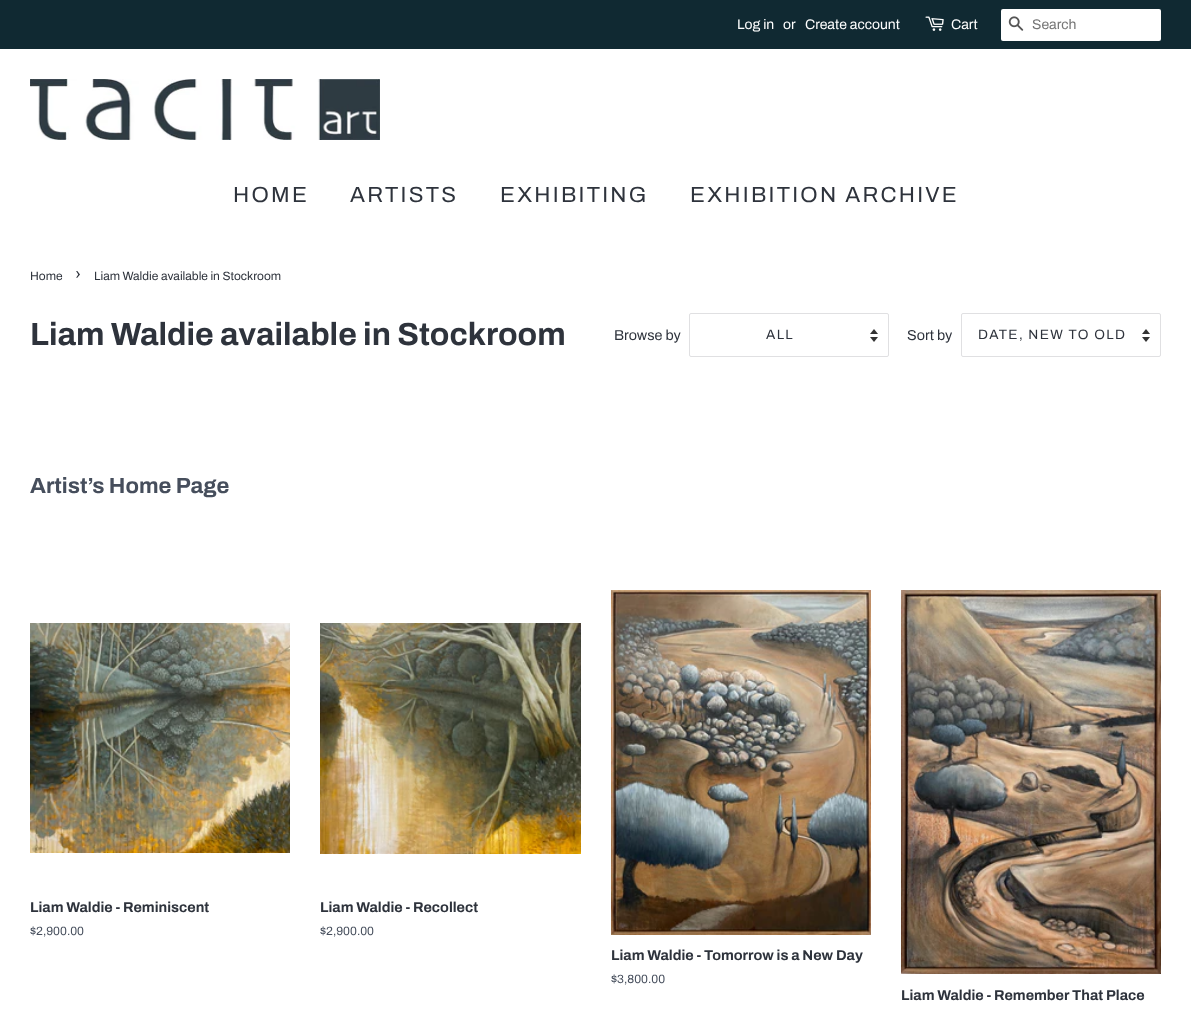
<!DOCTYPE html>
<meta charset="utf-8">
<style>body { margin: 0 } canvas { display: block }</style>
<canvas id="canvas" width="1191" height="1014"></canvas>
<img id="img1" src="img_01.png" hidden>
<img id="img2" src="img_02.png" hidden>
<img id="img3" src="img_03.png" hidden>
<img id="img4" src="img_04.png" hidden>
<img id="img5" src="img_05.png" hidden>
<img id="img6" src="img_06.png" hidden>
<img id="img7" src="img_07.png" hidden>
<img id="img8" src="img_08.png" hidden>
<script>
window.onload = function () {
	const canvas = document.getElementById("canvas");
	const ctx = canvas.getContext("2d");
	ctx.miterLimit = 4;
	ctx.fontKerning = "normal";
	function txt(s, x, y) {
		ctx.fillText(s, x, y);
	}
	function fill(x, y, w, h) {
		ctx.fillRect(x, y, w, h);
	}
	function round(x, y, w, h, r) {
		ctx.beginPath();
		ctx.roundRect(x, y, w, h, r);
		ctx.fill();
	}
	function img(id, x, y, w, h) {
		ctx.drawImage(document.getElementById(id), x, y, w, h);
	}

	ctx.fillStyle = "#FFFFFF";
	fill(0, 0, 1191, 1014);
	ctx.fillStyle = "#102932";
	fill(0, 0, 1191, 49);
	img("img1", 925, 16, 19, 15);
	ctx.fillStyle = "#FFFFFF";
	round(1001, 9, 160, 32, 2);
	img("img2", 1008, 16, 16, 15);
	img("img3", 30, 79, 350, 61);
	img("img4", 870, 329, 8, 13);
	ctx.beginPath();
	ctx.roundRect(689.5, 313.5, 199, 43, 1.5);
	ctx.strokeStyle = "#E0E0E2";
	ctx.stroke();
	img("img4", 1142, 329, 8, 13);
	ctx.beginPath();
	ctx.roundRect(961.5, 313.5, 199, 43, 1.5);
	ctx.stroke();
	img("img5", 30, 623, 260, 230);
	img("img6", 320, 623, 261, 231);
	img("img7", 611, 590, 260, 345);
	img("img8", 901, 590, 260, 384);
	ctx.font = "14px Archivo";
	txt("Log in", 737, 29);
	txt("or", 783, 29);
	txt("Create account", 805, 29);
	txt("Cart", 951, 29);
	ctx.fillStyle = "#757575";
	txt("Search", 1032, 29);
	ctx.letterSpacing = "2.25px";
	ctx.font = "22px Archivo";
	ctx.fillStyle = "#2E333C";
	txt("HOME", 233, 202);
	txt("ARTISTS", 350, 202);
	txt("EXHIBITING", 500, 202);
	txt("EXHIBITION ARCHIVE", 690, 202);
	ctx.letterSpacing = "0px";
	ctx.font = "12px Archivo";
	txt("Home", 30, 280);
	ctx.font = "17px Archivo";
	txt("›", 75, 280);
	ctx.font = "12px Archivo";
	txt("Liam Waldie available in Stockroom", 94, 280);
	ctx.font = "bold 32px Archivo";
	txt("Liam Waldie available in Stockroom", 30, 345);
	ctx.font = "14.4px Archivo";
	txt("Browse by", 614, 340);
	ctx.letterSpacing = "1.4px";
	ctx.font = "13.6px Archivo";
	txt("ALL", 766, 339);
	ctx.letterSpacing = "0px";
	ctx.font = "14.4px Archivo";
	txt("Sort by", 907, 340);
	ctx.letterSpacing = "1.4px";
	ctx.font = "13.6px Archivo";
	txt("DATE, NEW TO OLD", 978, 339);
	ctx.letterSpacing = "0px";
	ctx.font = "bold 22px Archivo";
	ctx.fillStyle = "#464E5C";
	txt("Artist’s Home Page", 30, 493);
	ctx.font = "bold 14.4px Archivo";
	ctx.fillStyle = "#2E333C";
	txt("Liam Waldie - Reminiscent", 30, 912);
	ctx.font = "12px Archivo";
	ctx.fillStyle = "#464E5C";
	txt("$2,900.00", 30, 935);
	ctx.font = "bold 14.4px Archivo";
	ctx.fillStyle = "#2E333C";
	txt("Liam Waldie - Recollect", 320, 912);
	ctx.font = "12px Archivo";
	ctx.fillStyle = "#464E5C";
	txt("$2,900.00", 320, 935);
	ctx.font = "bold 14.4px Archivo";
	ctx.fillStyle = "#2E333C";
	txt("Liam Waldie - Tomorrow is a New Day", 611, 960);
	ctx.font = "12px Archivo";
	ctx.fillStyle = "#464E5C";
	txt("$3,800.00", 611, 983);
	ctx.font = "bold 14.4px Archivo";
	ctx.fillStyle = "#2E333C";
	txt("Liam Waldie - Remember That Place", 901, 1000);
};
</script>
